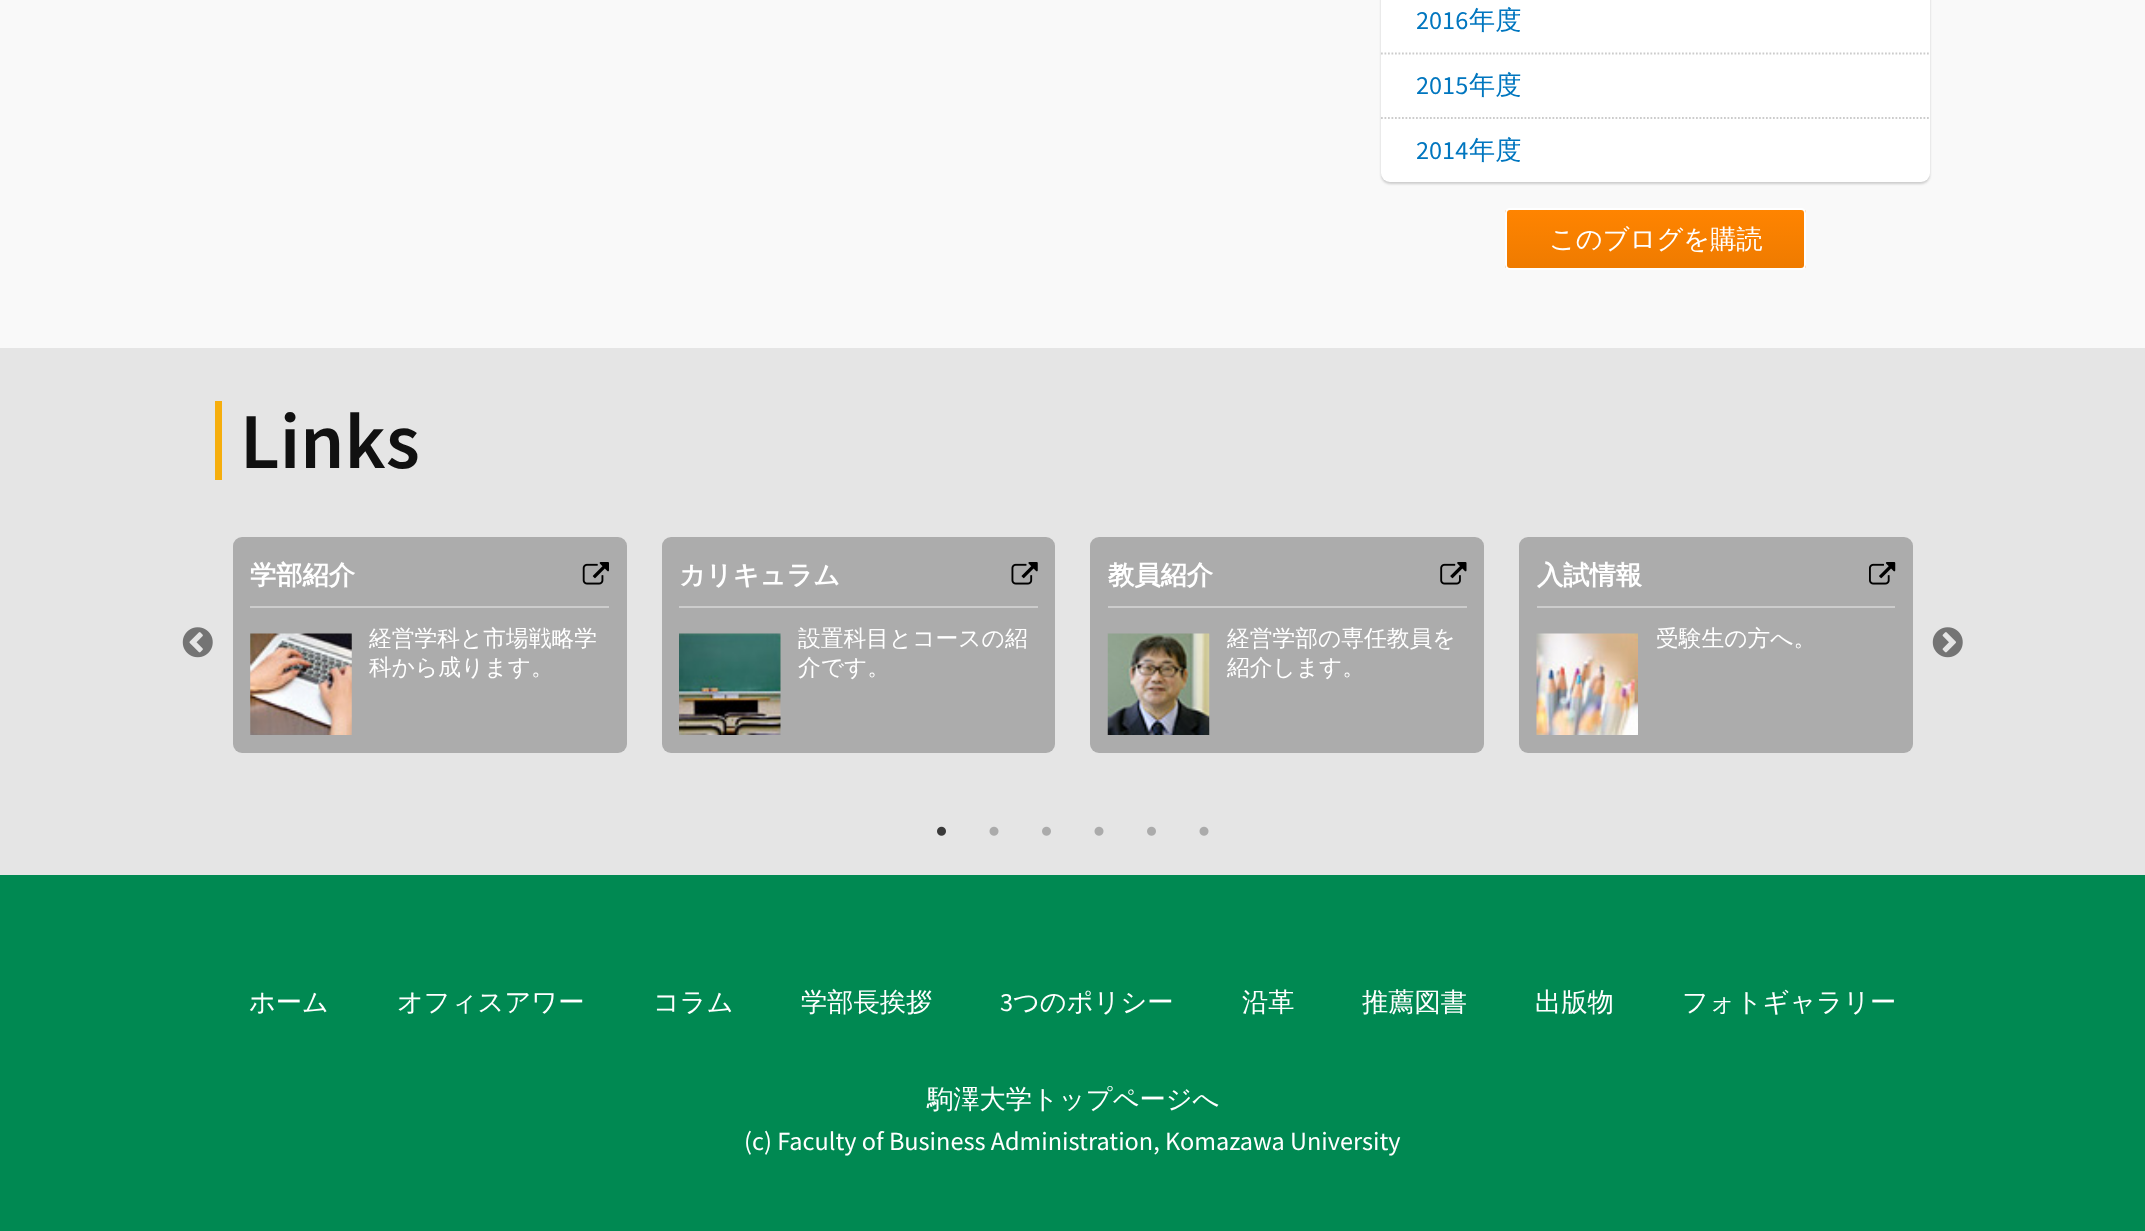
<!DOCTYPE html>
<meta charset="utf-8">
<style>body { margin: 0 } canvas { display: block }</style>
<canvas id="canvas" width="2145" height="1231"></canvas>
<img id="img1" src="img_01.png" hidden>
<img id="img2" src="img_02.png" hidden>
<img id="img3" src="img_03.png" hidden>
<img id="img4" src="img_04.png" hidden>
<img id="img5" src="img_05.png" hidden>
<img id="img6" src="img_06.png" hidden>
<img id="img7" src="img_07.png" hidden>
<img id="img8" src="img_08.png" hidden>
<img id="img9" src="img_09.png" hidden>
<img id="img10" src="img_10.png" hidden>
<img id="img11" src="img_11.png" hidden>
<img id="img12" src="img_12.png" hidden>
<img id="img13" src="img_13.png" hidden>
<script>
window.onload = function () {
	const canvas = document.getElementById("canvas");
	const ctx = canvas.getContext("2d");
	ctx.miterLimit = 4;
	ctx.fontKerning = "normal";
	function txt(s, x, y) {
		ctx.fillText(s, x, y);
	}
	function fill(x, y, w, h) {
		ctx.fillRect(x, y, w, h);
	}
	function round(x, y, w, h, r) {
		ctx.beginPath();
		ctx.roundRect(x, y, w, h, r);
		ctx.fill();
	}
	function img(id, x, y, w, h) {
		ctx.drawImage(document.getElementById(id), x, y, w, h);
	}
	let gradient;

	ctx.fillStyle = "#F9F9F9";
	fill(0, 0, 2145, 1231);
	ctx.fillStyle = "#CCCCCC";
	ctx.filter = "blur(1px)";
	ctx.beginPath();
	ctx.roundRect(1381, -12, 549, 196, 9);
	ctx.fill();
	ctx.filter = "none";
	ctx.fillStyle = "#FFFFFF";
	round(1381, -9, 549, 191, 9);
	ctx.beginPath();
	ctx.moveTo(1381, 53.5);
	ctx.lineTo(1930, 53.5);
	ctx.strokeStyle = "#CCCCCC";
	ctx.lineWidth = 1.8;
	ctx.setLineDash([1.75, 1.75]);
	ctx.stroke();
	ctx.beginPath();
	ctx.moveTo(1381, 118);
	ctx.lineTo(1930, 118);
	ctx.stroke();
	ctx.save();
	ctx.beginPath();
	ctx.roundRect(1505, 208, 301, 62, 5);
	ctx.clip();
	gradient = ctx.createLinearGradient(1656, 210, 1656, 268);
	gradient.addColorStop(0, "#FF8400");
	gradient.addColorStop(1, "#EF7B00");
	ctx.fillStyle = gradient;
	fill(1505, 210, 301, 58);
	ctx.restore();
	ctx.beginPath();
	ctx.roundRect(1506, 209, 299, 60, 4);
	ctx.strokeStyle = "#FFFFFF";
	ctx.lineWidth = 2;
	ctx.setLineDash([]);
	ctx.stroke();
	ctx.fillStyle = "#E5E5E5";
	fill(0, 348, 2145, 527);
	ctx.fillStyle = "#F6AE0D";
	fill(215, 401, 7, 79);
	img("img1", 182, 627, 31, 31);
	ctx.fillStyle = "#ACACAC";
	round(233, 537, 394, 216, 9);
	ctx.fillStyle = "#CCCCCC";
	fill(250, 606, 359, 2);
	img("img2", 582, 562, 27, 23);
	img("img3", 250, 633, 102, 102);
	ctx.fillStyle = "#ACACAC";
	round(662, 537, 393, 216, 9);
	ctx.fillStyle = "#CCCCCC";
	fill(679, 606, 359, 2);
	img("img4", 1011, 562, 27, 23);
	img("img5", 679, 633, 102, 102);
	ctx.fillStyle = "#ACACAC";
	round(1090, 537, 394, 216, 9);
	ctx.fillStyle = "#CCCCCC";
	fill(1108, 606, 359, 2);
	img("img6", 1440, 562, 27, 23);
	img("img7", 1107, 633, 103, 102);
	ctx.fillStyle = "#ACACAC";
	round(1519, 537, 394, 216, 9);
	ctx.fillStyle = "#CCCCCC";
	fill(1537, 606, 358, 2);
	img("img8", 1869, 562, 27, 23);
	img("img9", 1536, 633, 102, 102);
	img("img10", 1932, 627, 31, 31);
	img("img11", 937, 826, 9, 10);
	img("img12", 989, 826, 10, 10);
	img("img13", 1042, 826, 9, 10);
	img("img12", 1094, 826, 10, 10);
	img("img13", 1147, 826, 9, 10);
	img("img12", 1199, 826, 10, 10);
	ctx.fillStyle = "#008952";
	fill(0, 875, 2145, 356);
	ctx.font = "26.25px Source Sans Pro";
	ctx.fillStyle = "#0076BF";
	txt("2016", 1416, 29);
	ctx.font = "500 26.25px WenQuanYi Zen Hei";
	txt("年度", 1469, 29);
	ctx.font = "26.25px Source Sans Pro";
	txt("2015", 1416, 94);
	ctx.font = "500 26.25px WenQuanYi Zen Hei";
	txt("年度", 1469, 94);
	ctx.font = "26.25px Source Sans Pro";
	txt("2014", 1416, 159);
	ctx.font = "500 26.25px WenQuanYi Zen Hei";
	txt("年度", 1469, 159);
	ctx.fillStyle = "#FFFFFF";
	txt("このブログを購読", 1549, 248);
	ctx.font = "600 79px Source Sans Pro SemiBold";
	ctx.fillStyle = "#111111";
	txt("Links", 240, 468);
	ctx.font = "bold 26.25px WenQuanYi Zen Hei";
	ctx.fillStyle = "#FFFFFF";
	txt("学部紹介", 250, 584);
	ctx.font = "500 22.75px WenQuanYi Zen Hei";
	txt("経営学科と市場戦略学", 369, 646);
	txt("科から成ります。", 369, 675);
	ctx.font = "bold 26.25px WenQuanYi Zen Hei";
	txt("カリキュラム", 679, 584);
	ctx.font = "500 22.75px WenQuanYi Zen Hei";
	txt("設置科目とコースの紹", 798, 646);
	txt("介です。", 798, 675);
	ctx.font = "bold 26.25px WenQuanYi Zen Hei";
	txt("教員紹介", 1108, 584);
	ctx.font = "500 22.75px WenQuanYi Zen Hei";
	txt("経営学部の専任教員を", 1227, 646);
	txt("紹介します。", 1227, 675);
	ctx.font = "bold 26.25px WenQuanYi Zen Hei";
	txt("入試情報", 1537, 584);
	ctx.font = "500 22.75px WenQuanYi Zen Hei";
	txt("受験生の方へ。", 1656, 646);
	ctx.font = "500 26.25px WenQuanYi Zen Hei";
	txt("ホーム", 249, 1011);
	txt("オフィスアワー", 397, 1011);
	txt("コラム", 653, 1011);
	txt("学部長挨拶", 801, 1011);
	ctx.font = "26.25px Source Sans Pro";
	txt("3", 1000, 1011);
	ctx.font = "500 26.25px WenQuanYi Zen Hei";
	txt("つのポリシー", 1013, 1011);
	txt("沿革", 1242, 1011);
	txt("推薦図書", 1362, 1011);
	txt("出版物", 1535, 1011);
	txt("フォトギャラリー", 1682, 1011);
	txt("駒澤大学トップページへ", 927, 1108);
	ctx.font = "26.25px Source Sans Pro";
	txt("(c) Faculty of Business Administration, Komazawa University", 744, 1150);
};
</script>
